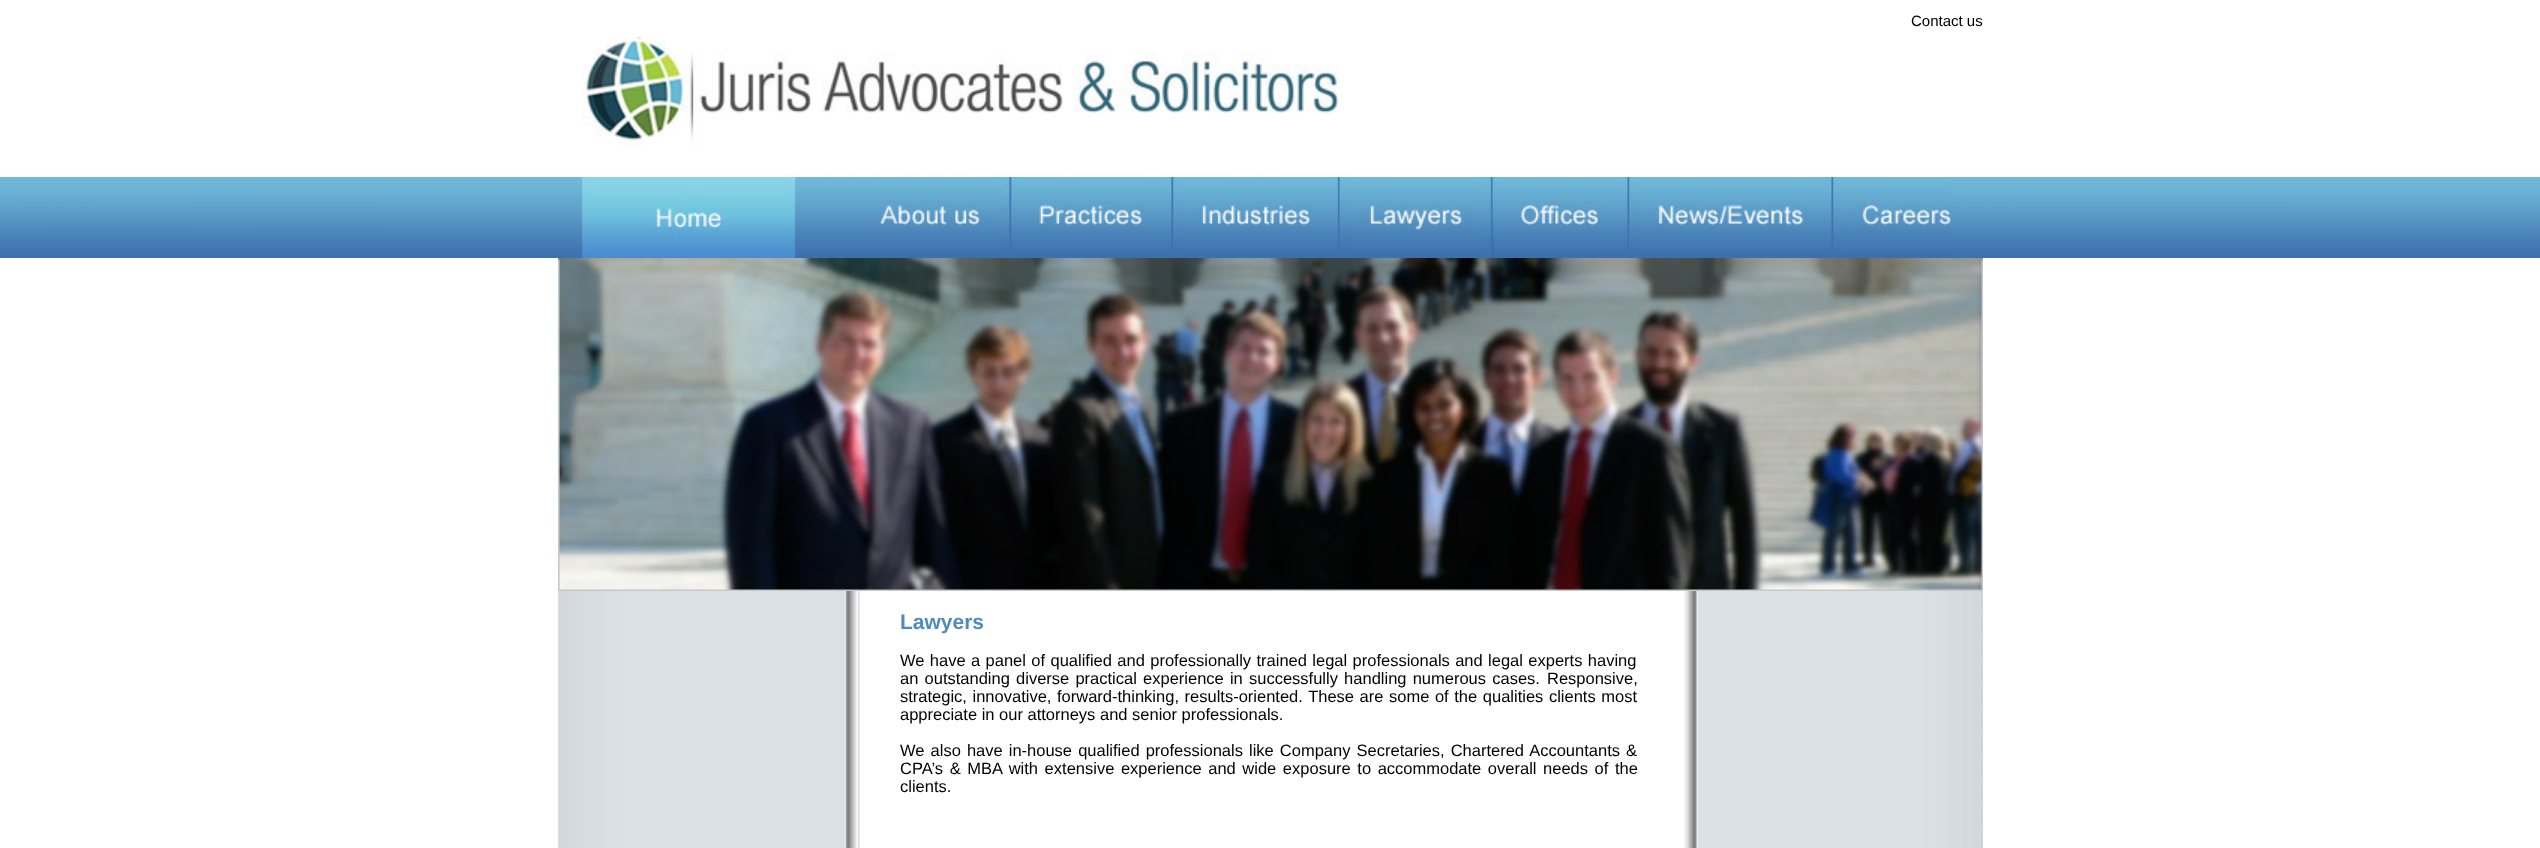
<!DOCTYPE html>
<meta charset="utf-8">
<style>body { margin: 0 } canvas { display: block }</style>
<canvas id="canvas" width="2540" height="848"></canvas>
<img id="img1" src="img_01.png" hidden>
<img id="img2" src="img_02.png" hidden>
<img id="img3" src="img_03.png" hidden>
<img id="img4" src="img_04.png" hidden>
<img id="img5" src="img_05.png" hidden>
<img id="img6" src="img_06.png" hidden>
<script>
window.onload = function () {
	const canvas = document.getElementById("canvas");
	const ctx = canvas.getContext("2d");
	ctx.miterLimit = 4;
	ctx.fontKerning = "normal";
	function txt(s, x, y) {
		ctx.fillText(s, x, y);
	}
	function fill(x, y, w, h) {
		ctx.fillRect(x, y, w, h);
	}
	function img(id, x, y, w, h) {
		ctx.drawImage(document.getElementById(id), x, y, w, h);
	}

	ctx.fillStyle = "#FFFFFF";
	fill(0, 0, 2540, 848);
	img("img1", 582, 34, 768, 143);
	img("img2", 0, 177, 2540, 81);
	img("img3", 581, 177, 1370, 81);
	img("img4", 558, 258, 1425, 333);
	img("img5", 558, 591, 302, 257);
	img("img6", 1683, 591, 300, 257);
	ctx.beginPath();
	ctx.moveTo(1982, 591);
	ctx.lineTo(1982, 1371);
	ctx.strokeStyle = "#CCCCCC";
	ctx.lineWidth = 1.5;
	ctx.setLineDash([1.5, 1.5]);
	ctx.stroke();
	ctx.font = "15px Liberation Sans";
	ctx.fillStyle = "#000000";
	txt("Contact us", 1911, 26);
	ctx.font = "bold 21px Liberation Sans";
	ctx.fillStyle = "#508BBE";
	txt("Lawyers", 900, 629);
	ctx.wordSpacing = "0.8px";
	ctx.font = "16.5px Liberation Sans";
	ctx.fillStyle = "#000000";
	txt("We have a panel of qualified and professionally trained legal professionals and legal experts having", 900, 666);
	ctx.wordSpacing = "1.6px";
	txt("an outstanding diverse practical experience in successfully handling numerous cases.", 900, 684);
	ctx.wordSpacing = "0px";
	txt("Responsive,", 1547, 684);
	ctx.wordSpacing = "1px";
	txt("strategic, innovative, forward-thinking, results-oriented. These are some of the qualities clients most", 900, 702);
	ctx.wordSpacing = "0px";
	txt("appreciate in our attorneys and senior professionals.", 900, 720);
	ctx.wordSpacing = "1.5px";
	txt("We also have in-house qualified professionals like Company Secretaries, Chartered Accountants &", 900, 756);
	ctx.wordSpacing = "2px";
	txt("CPA’s & MBA with extensive experience and wide exposure to accommodate overall needs of the", 900, 774);
	ctx.wordSpacing = "0px";
	txt("clients.", 900, 792);
};
</script>
